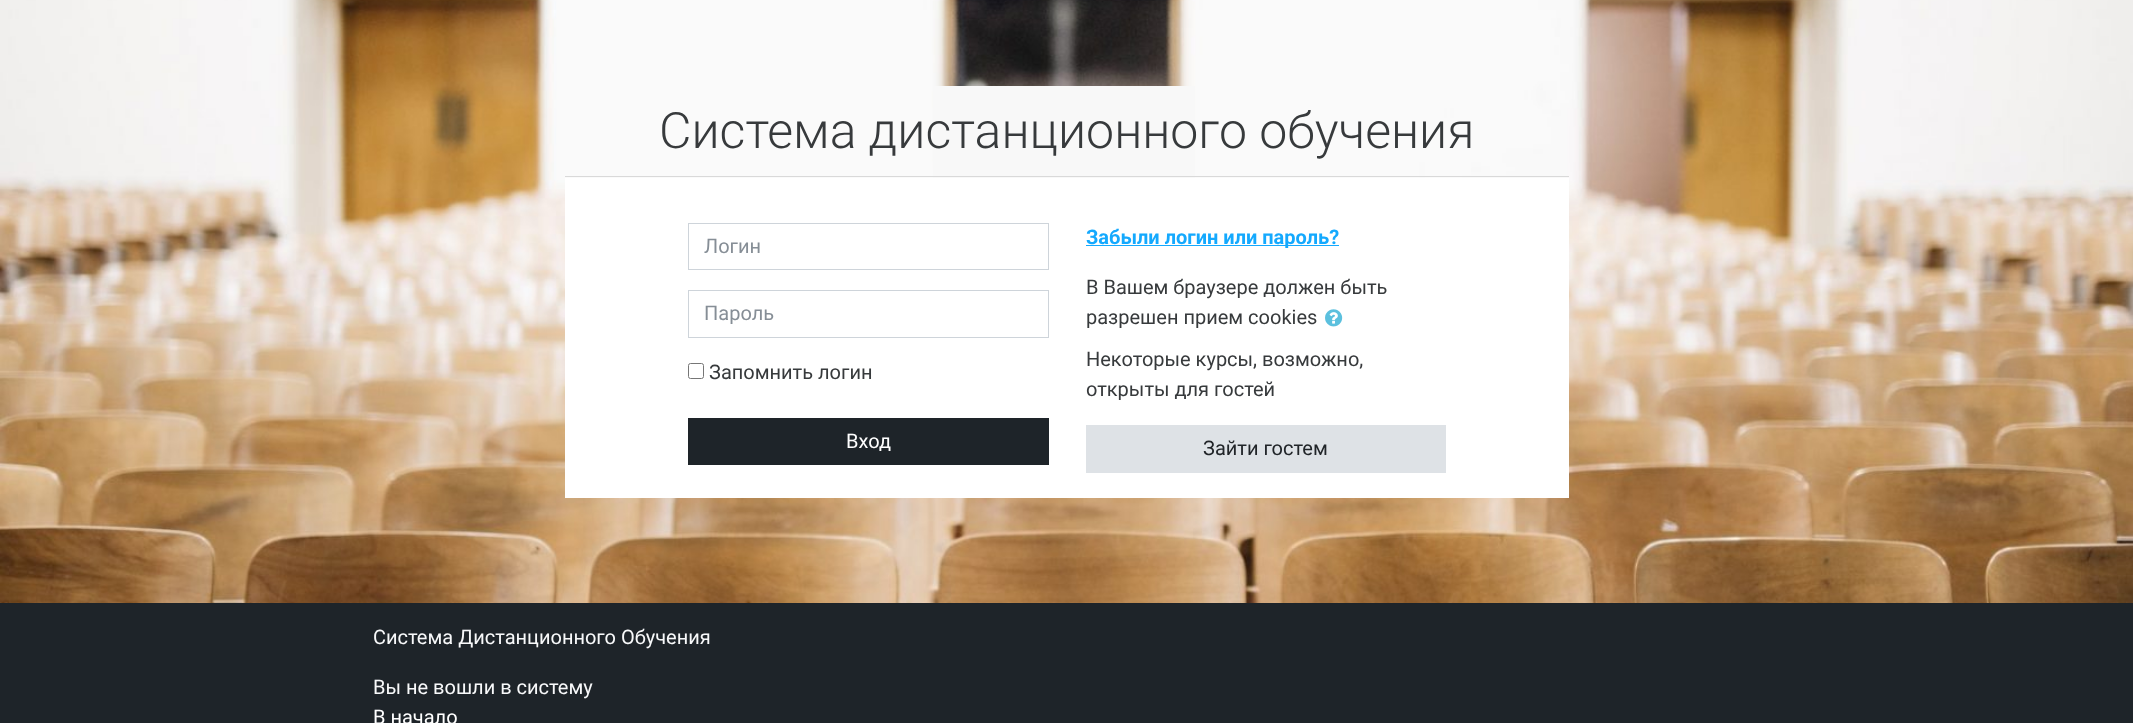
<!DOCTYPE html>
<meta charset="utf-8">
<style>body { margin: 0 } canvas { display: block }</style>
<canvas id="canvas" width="2133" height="723"></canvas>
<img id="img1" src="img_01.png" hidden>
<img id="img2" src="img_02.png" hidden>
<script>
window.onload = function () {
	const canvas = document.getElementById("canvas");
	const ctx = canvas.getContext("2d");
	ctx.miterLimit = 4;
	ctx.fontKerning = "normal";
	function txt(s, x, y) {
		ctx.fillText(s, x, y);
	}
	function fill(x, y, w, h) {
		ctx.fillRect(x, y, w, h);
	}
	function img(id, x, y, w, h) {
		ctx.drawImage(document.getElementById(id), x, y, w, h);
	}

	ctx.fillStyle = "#FFFFFF";
	fill(0, 0, 2133, 723);
	img("img1", 0, 0, 2133, 603);
	fill(565, 178, 1004, 320);
	ctx.fillStyle = "#F8F8F8";
	fill(933, 86, 262, 92);
	ctx.fillStyle = "#D9D9D9";
	fill(565, 176, 1004, 1);
	ctx.strokeStyle = "#CED4DA";
	ctx.strokeRect(688.5, 223.5, 360, 46);
	ctx.strokeRect(688.5, 290.5, 360, 47);
	ctx.beginPath();
	ctx.roundRect(688.5, 363.5, 15, 15, 2);
	ctx.strokeStyle = "#767676";
	ctx.stroke();
	ctx.fillStyle = "#1E2429";
	fill(688, 418, 361, 47);
	ctx.fillStyle = "#14A9FE";
	fill(1086, 245, 253, 1);
	img("img2", 1325, 309, 18, 18);
	ctx.fillStyle = "#DEE2E6";
	fill(1086, 425, 360, 48);
	ctx.fillStyle = "#1E2429";
	fill(0, 603, 2133, 120);
	ctx.font = "300 50px Roboto";
	ctx.fillStyle = "#373A3C";
	txt("Система дистанционного обучения", 659, 148);
	ctx.font = "20px Roboto";
	ctx.fillStyle = "#868E96";
	txt("Логин", 704, 253);
	txt("Пароль", 704, 320);
	ctx.fillStyle = "#373A3C";
	txt("Запомнить логин", 709, 379);
	ctx.fillStyle = "#FFFFFF";
	txt("Вход", 846, 448);
	ctx.font = "bold 20px Roboto";
	ctx.fillStyle = "#14A9FE";
	txt("Забыли логин или пароль?", 1086, 244);
	ctx.font = "20px Roboto";
	ctx.fillStyle = "#373A3C";
	txt("В Вашем браузере должен быть", 1086, 294);
	txt("разрешен прием cookies", 1086, 324);
	txt("Некоторые курсы, возможно,", 1086, 366);
	txt("открыты для гостей", 1086, 396);
	ctx.fillStyle = "#212529";
	txt("Зайти гостем", 1203, 455);
	ctx.fillStyle = "#F8F9FA";
	txt("Система Дистанционного Обучения", 373, 644);
	txt("Вы не вошли в систему", 373, 694);
	ctx.fillStyle = "#FFFFFF";
	txt("В начало", 373, 724);
};
</script>
